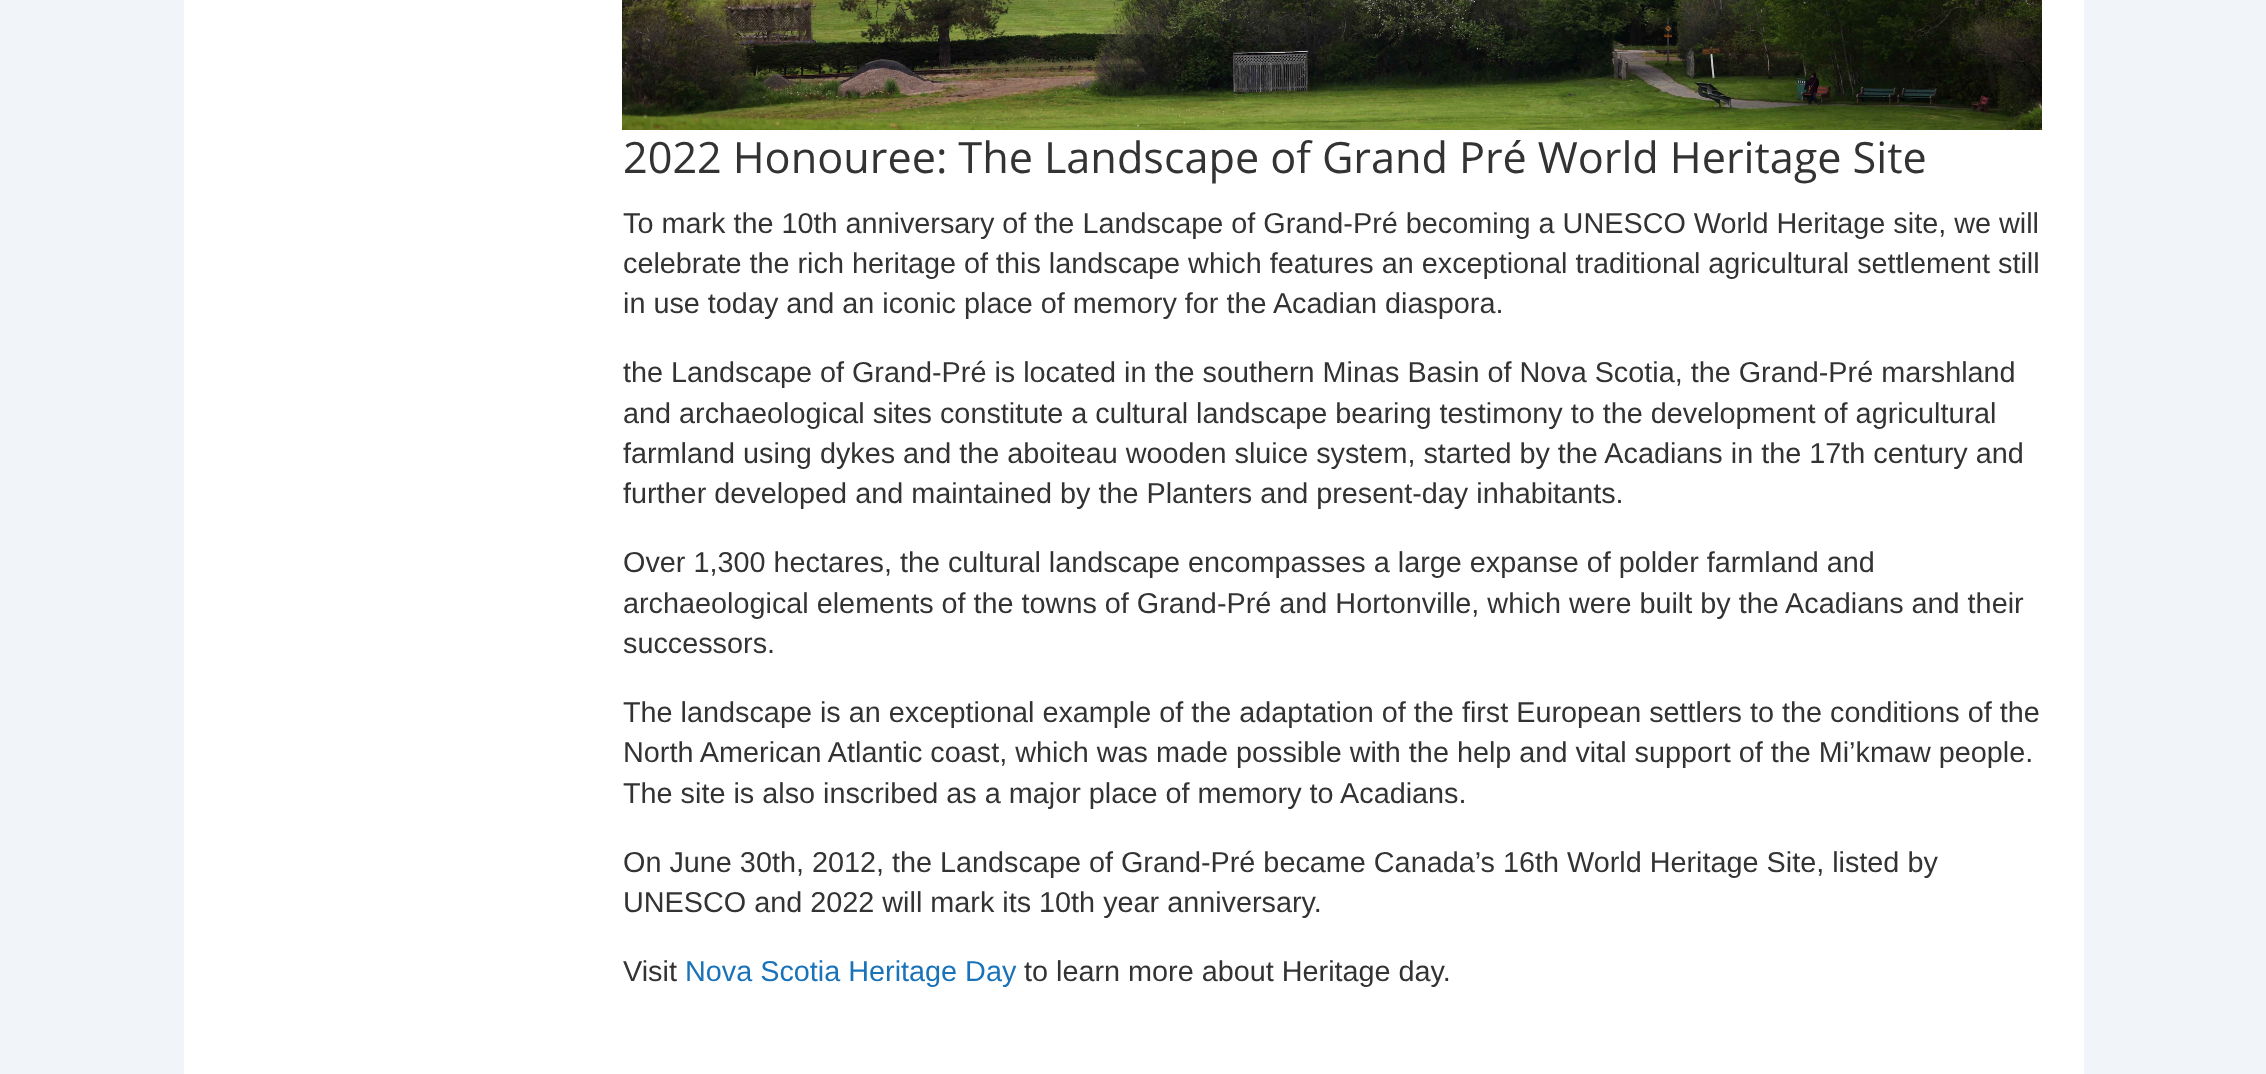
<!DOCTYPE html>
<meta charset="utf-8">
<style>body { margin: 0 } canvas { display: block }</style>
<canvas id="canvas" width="2266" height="1074"></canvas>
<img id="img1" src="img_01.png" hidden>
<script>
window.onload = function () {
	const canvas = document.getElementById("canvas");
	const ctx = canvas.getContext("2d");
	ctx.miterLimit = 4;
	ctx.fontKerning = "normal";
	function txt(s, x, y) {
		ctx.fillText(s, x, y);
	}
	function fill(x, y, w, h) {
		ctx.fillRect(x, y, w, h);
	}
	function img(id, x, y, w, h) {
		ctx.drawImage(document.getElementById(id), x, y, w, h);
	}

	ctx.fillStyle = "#F1F4F8";
	fill(0, 0, 2266, 1074);
	ctx.fillStyle = "#FFFFFF";
	fill(184, 0, 1900, 1074);
	img("img1", 622, 0, 1420, 130);
	ctx.wordSpacing = "-0.25px";
	ctx.font = "43.2px Open Sans";
	ctx.fillStyle = "#333333";
	txt("2022 Honouree: The Landscape of Grand Pré World Heritage Site", 623, 173);
	ctx.wordSpacing = "0px";
	ctx.font = "28.8px Liberation Sans";
	txt("To mark the 10th anniversary of the Landscape of Grand-Pré becoming a UNESCO World Heritage site, we will", 623, 233);
	txt("celebrate the rich heritage of this landscape which features an exceptional traditional agricultural settlement still", 623, 273);
	txt("in use today and an iconic place of memory for the Acadian diaspora.", 623, 313);
	txt("the Landscape of Grand-Pré is located in the southern Minas Basin of Nova Scotia, the Grand-Pré marshland", 623, 382);
	txt("and archaeological sites constitute a cultural landscape bearing testimony to the development of agricultural", 623, 423);
	txt("farmland using dykes and the aboiteau wooden sluice system, started by the Acadians in the 17th century and", 623, 463);
	txt("further developed and maintained by the Planters and present-day inhabitants.", 623, 503);
	txt("Over 1,300 hectares, the cultural landscape encompasses a large expanse of polder farmland and", 623, 572);
	txt("archaeological elements of the towns of Grand-Pré and Hortonville, which were built by the Acadians and their", 623, 613);
	txt("successors.", 623, 653);
	txt("The landscape is an exceptional example of the adaptation of the first European settlers to the conditions of the", 623, 722);
	txt("North American Atlantic coast, which was made possible with the help and vital support of the Mi’kmaw people.", 623, 762);
	txt("The site is also inscribed as a major place of memory to Acadians.", 623, 803);
	txt("On June 30th, 2012, the Landscape of Grand-Pré became Canada’s 16th World Heritage Site, listed by", 623, 872);
	txt("UNESCO and 2022 will mark its 10th year anniversary.", 623, 912);
	txt("Visit", 623, 981);
	ctx.fillStyle = "#1A73B9";
	txt("Nova Scotia Heritage Day", 685, 981);
	ctx.fillStyle = "#333333";
	txt("to learn more about Heritage day.", 1024, 981);
};
</script>
